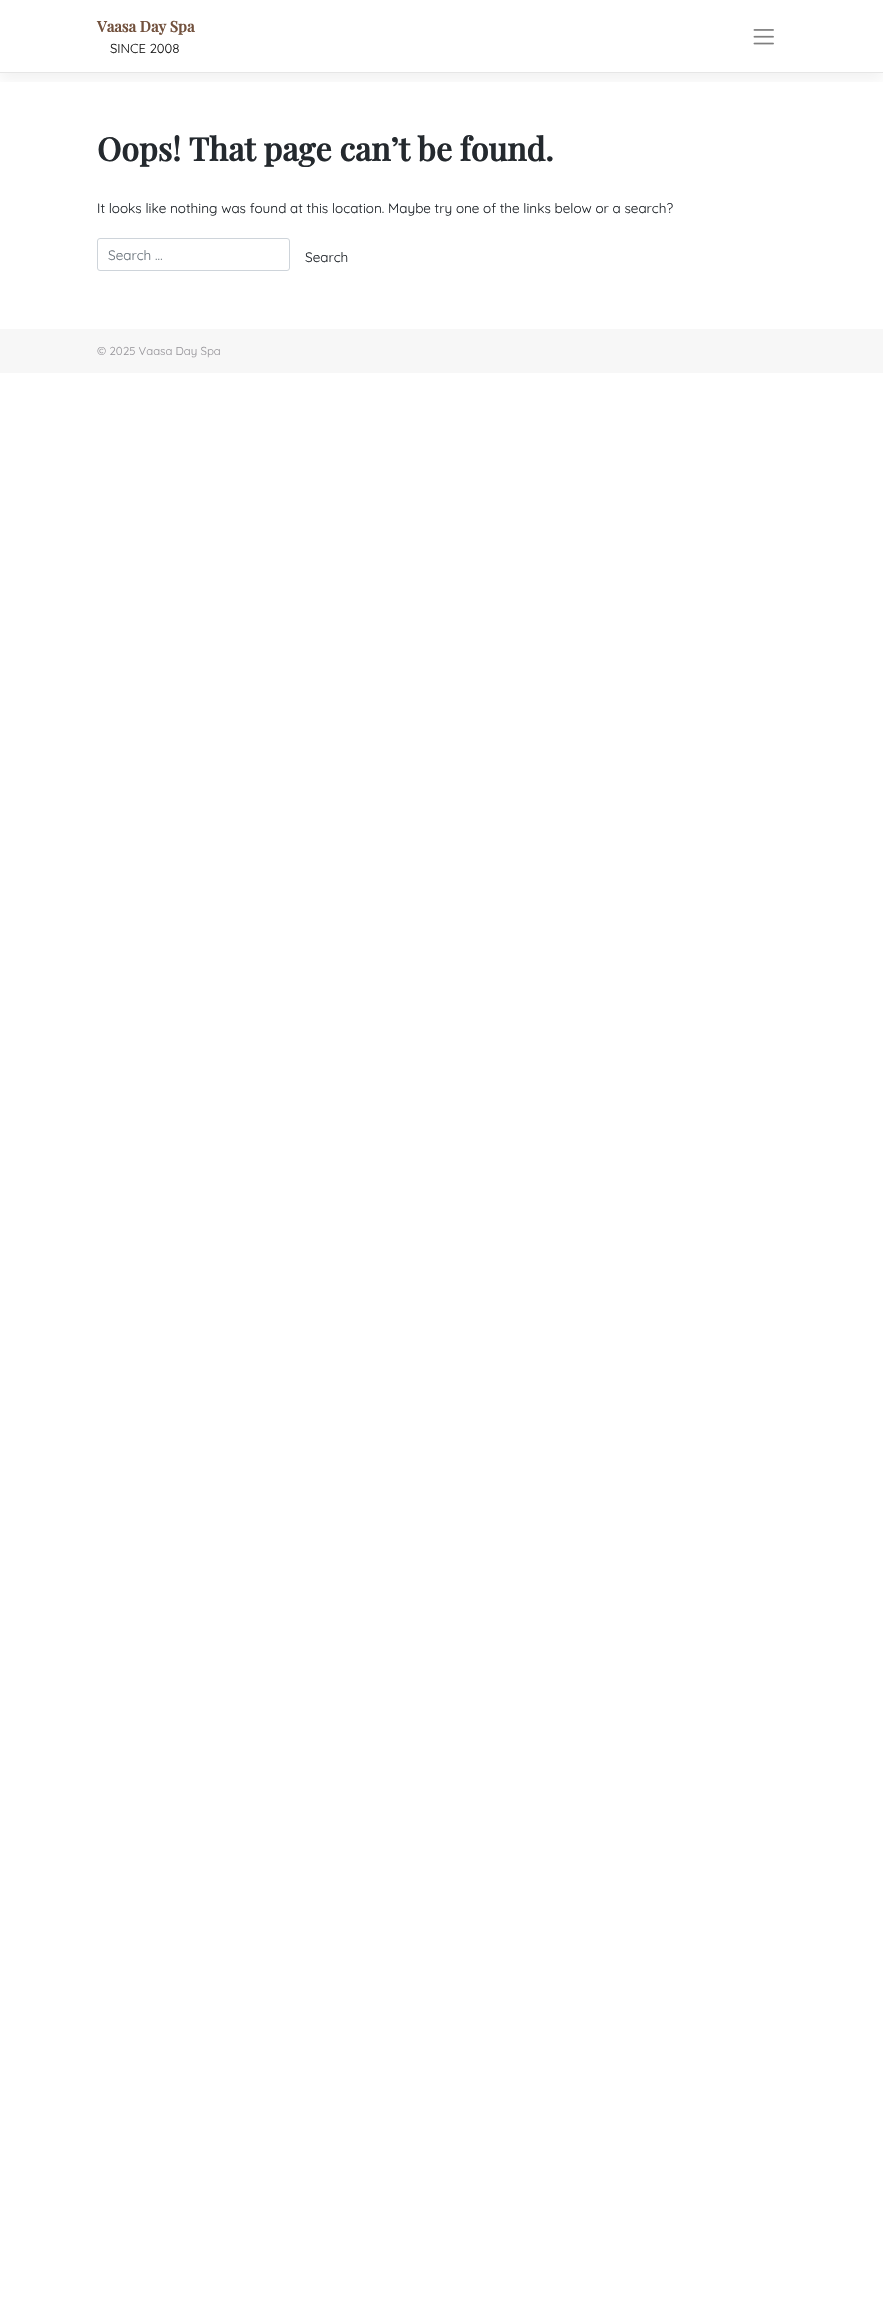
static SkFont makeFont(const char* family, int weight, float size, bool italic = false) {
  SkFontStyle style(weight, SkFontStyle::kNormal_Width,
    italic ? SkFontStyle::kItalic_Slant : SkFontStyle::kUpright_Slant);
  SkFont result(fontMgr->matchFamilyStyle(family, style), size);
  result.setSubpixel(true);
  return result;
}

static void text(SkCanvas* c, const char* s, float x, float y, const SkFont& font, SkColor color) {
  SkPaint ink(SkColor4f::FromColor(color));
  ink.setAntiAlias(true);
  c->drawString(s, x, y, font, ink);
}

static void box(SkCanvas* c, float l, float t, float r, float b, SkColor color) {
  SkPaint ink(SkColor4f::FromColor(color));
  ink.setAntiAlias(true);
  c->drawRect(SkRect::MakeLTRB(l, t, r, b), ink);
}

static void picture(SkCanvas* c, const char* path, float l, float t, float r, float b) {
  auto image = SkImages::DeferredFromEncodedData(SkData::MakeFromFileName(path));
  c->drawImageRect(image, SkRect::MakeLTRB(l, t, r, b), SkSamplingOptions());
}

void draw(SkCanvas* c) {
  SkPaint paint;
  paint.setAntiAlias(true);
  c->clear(0xffffffff);
  c->save();
  c->clipRect(SkRect::MakeLTRB(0, 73, 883, 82));
  paint.setColor(0x0d000000);
  paint.setMaskFilter(SkMaskFilter::MakeBlur(kNormal_SkBlurStyle, 7));
  c->drawRect(SkRect::MakeLTRB(0, 7, 883, 80), paint);
  paint.setMaskFilter(nullptr);
  c->restore();
  box(c, 0, 72, 883, 73, 0xffe6e6e6);
  SkFont face1 = makeFont("Playfair Display", 700, 15);
  text(c, "Vaasa Day Spa", 97, 32, face1, 0xff72513d);
  SkFont face2 = makeFont("Quicksand", 400, 13);
  text(c, "SINCE 2008", 110, 53, face2, 0xff1a1a1a);
  picture(c, "img_01.png", 753, 29, 774, 45);
  SkFont face3 = makeFont("Playfair Display", 700, 32);
  text(c, "Oops! That page can’t be found.", 97, 161, face3, 0xff24292e);
  SkFont face4 = makeFont("Quicksand", 400, 13.6f);
  text(c, "It looks like nothing was found at this location. Maybe try one of the links below or a search?", 97, 213, face4, 0xff24292e);
  paint.setStyle(SkPaint::kStroke_Style);
  paint.setStrokeWidth(1);
  paint.setColor(0xffced4da);
  c->drawRoundRect(SkRect::MakeLTRB(97.5f, 238.5f, 289.5f, 270.5f), 2.5f, 2.5f, paint);
  text(c, "Search …", 108, 260, face4, 0xff6c757d);
  text(c, "Search", 305, 262, face4, 0xff24292e);
  box(c, 0, 329, 883, 373, 0xfff7f7f7);
  SkFont face5 = makeFont("Quicksand", 400, 11.5f);
  text(c, "© 2025 Vaasa Day Spa", 97, 355, face5, 0xff99979c);
}
